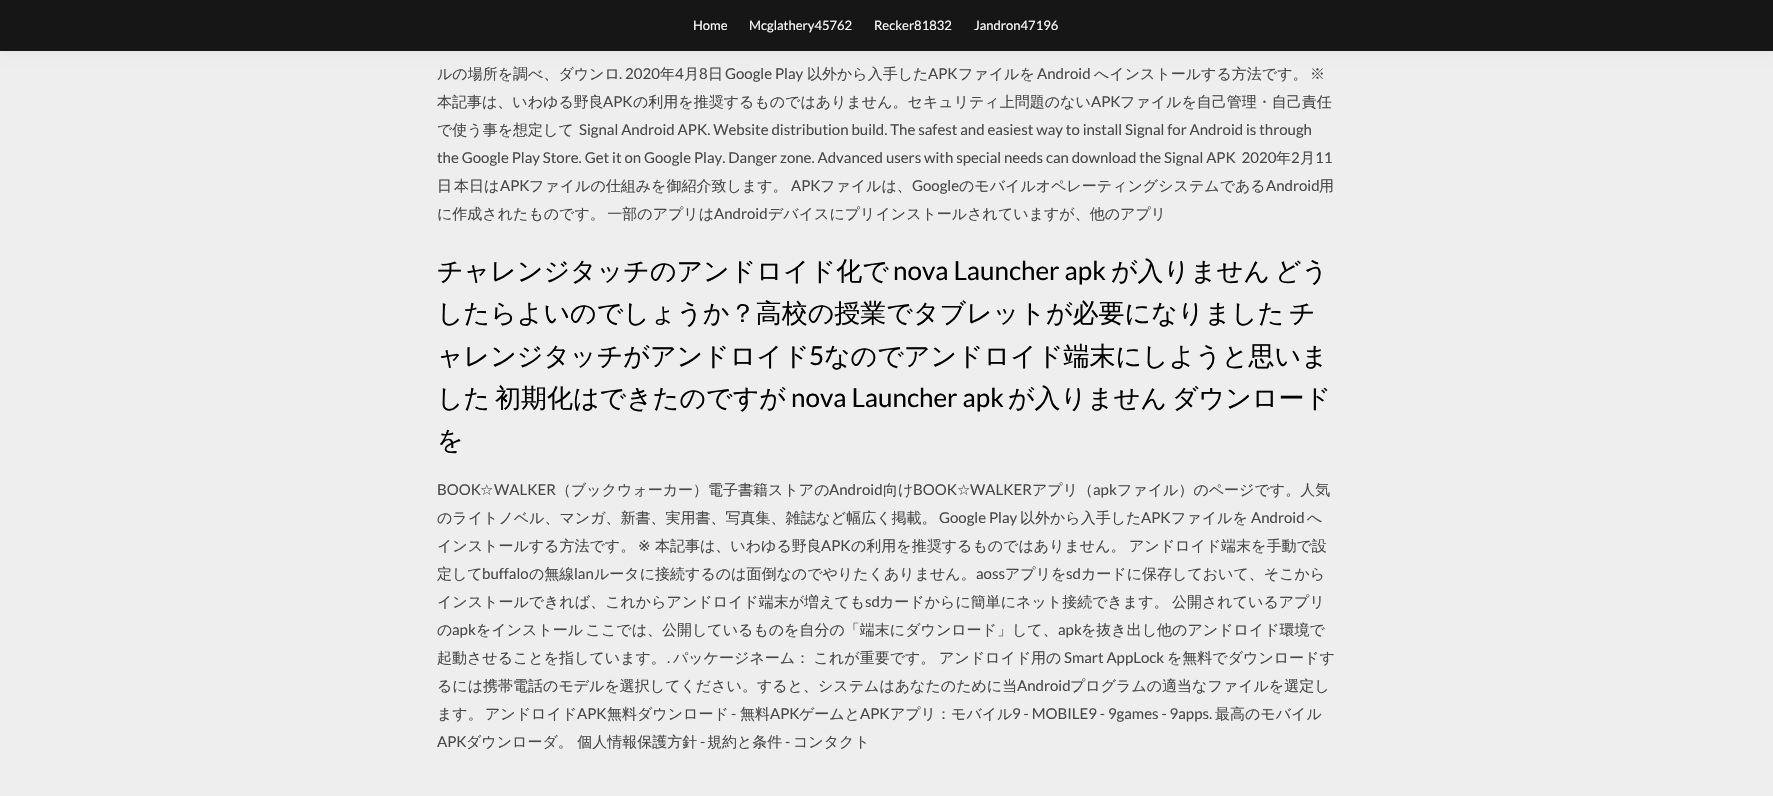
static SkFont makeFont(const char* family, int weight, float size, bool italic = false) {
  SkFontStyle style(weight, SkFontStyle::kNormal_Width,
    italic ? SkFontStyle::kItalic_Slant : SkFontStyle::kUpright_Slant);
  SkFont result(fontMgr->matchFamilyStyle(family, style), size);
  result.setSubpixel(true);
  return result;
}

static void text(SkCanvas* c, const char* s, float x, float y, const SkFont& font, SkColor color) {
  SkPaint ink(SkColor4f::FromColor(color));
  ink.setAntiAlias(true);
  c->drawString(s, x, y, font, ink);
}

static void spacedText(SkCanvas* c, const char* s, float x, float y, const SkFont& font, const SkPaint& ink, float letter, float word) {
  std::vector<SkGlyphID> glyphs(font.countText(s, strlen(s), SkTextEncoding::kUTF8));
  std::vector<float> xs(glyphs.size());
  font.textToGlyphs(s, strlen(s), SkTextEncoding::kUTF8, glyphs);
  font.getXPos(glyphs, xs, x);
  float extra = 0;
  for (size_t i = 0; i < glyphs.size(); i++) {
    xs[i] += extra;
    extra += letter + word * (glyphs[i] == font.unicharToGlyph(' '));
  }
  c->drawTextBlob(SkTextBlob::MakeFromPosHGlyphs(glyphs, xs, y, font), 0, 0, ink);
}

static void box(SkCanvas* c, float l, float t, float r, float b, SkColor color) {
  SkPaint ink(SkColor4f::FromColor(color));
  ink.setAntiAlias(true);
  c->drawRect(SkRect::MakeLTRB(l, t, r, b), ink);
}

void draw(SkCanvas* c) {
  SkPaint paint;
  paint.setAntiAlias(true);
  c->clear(0xffeeeeee);
  paint.setColor(0x0d000000);
  paint.setMaskFilter(SkMaskFilter::MakeBlur(kNormal_SkBlurStyle, 5));
  c->drawRect(SkRect::MakeLTRB(0, 0, 1773, 51), paint);
  paint.setMaskFilter(nullptr);
  box(c, 0, 0, 1773, 51, 0xff171616);
  SkFont face1 = makeFont("Lato", 400, 13);
  text(c, "Home", 693, 30, face1, 0xffffffff);
  text(c, "Mcglathery45762", 749, 30, face1, 0xffffffff);
  text(c, "Recker81832", 874, 30, face1, 0xffffffff);
  text(c, "Jandron47196", 974, 30, face1, 0xffffffff);
  SkFont face2 = makeFont("WenQuanYi Zen Hei", 500, 15);
  text(c, "ルの場所を調べ、ダウンロ", 437, 79, face2, 0xff484848);
  SkFont face3 = makeFont("Lato", 400, 15);
  text(c, ". 2020", 619, 79, face3, 0xff484848);
  text(c, "年", 660, 79, face2, 0xff484848);
  text(c, "4", 675, 79, face3, 0xff484848);
  text(c, "月", 684, 79, face2, 0xff484848);
  text(c, "8", 699, 79, face3, 0xff484848);
  text(c, "日", 708, 79, face2, 0xff484848);
  text(c, "Google Play", 725, 79, face3, 0xff484848);
  text(c, "以外から入手した", 807, 79, face2, 0xff484848);
  text(c, "APK", 928, 79, face3, 0xff484848);
  text(c, "ファイルを", 958, 79, face2, 0xff484848);
  text(c, "Android", 1037, 79, face3, 0xff484848);
  text(c, "へインストールする方法です。", 1094, 79, face2, 0xff484848);
  text(c, "※", 1310, 79, face2, 0xff484848);
  text(c, "本記事は、いわゆる野良", 437, 107, face2, 0xff484848);
  text(c, "APK", 603, 107, face3, 0xff484848);
  text(c, "の利用を推奨するものではありません。セキュリティ上問題のない", 633, 107, face2, 0xff484848);
  text(c, "APK", 1091, 107, face3, 0xff484848);
  text(c, "ファイルを自己管理・自己責任", 1120, 107, face2, 0xff484848);
  text(c, "で使う事を想定して", 437, 135, face2, 0xff484848);
  text(c, "Signal Android APK. Website distribution build. The safest and easiest way to install Signal for Android is through", 579, 135, face3, 0xff484848);
  text(c, "the Google Play Store. Get it on Google Play. Danger zone. Advanced users with special needs can download the Signal APK  2020", 437, 163, face3, 0xff484848);
  text(c, "年", 1276, 163, face2, 0xff484848);
  text(c, "2", 1291, 163, face3, 0xff484848);
  text(c, "月", 1300, 163, face2, 0xff484848);
  text(c, "11", 1315, 163, face3, 0xff484848);
  text(c, "日", 437, 191, face2, 0xff484848);
  text(c, "本日は", 454, 191, face2, 0xff484848);
  text(c, "APK", 500, 191, face3, 0xff484848);
  text(c, "ファイルの仕組みを御紹介致します。", 529, 191, face2, 0xff484848);
  text(c, "APK", 791, 191, face3, 0xff484848);
  text(c, "ファイルは、", 820, 191, face2, 0xff484848);
  text(c, "Google", 912, 191, face3, 0xff484848);
  text(c, "のモバイルオペレーティングシステムである", 959, 191, face2, 0xff484848);
  text(c, "Android", 1266, 191, face3, 0xff484848);
  text(c, "用", 1319, 191, face2, 0xff484848);
  paint.setColor(0xff484848);
  spacedText(c, "に作成されたものです。 一部のアプリは", 437, 219, face2, paint, 0, -2);
  text(c, "Android", 714, 219, face3, 0xff484848);
  text(c, "デバイスにプリインストールされていますが、他のアプリ", 768, 219, face2, 0xff484848);
  SkFont face4 = makeFont("WenQuanYi Zen Hei", 500, 26);
  text(c, "チャレンジタッチのアンドロイド化で", 437, 280, face4, 0xff000000);
  SkFont face5 = makeFont("Lato", 400, 26);
  text(c, "nova Launcher apk", 893, 280, face5, 0xff000000);
  text(c, "が入りません", 1111, 280, face4, 0xff000000);
  text(c, "どう", 1275, 280, face4, 0xff000000);
  paint.setColor(0xff000000);
  spacedText(c, "したらよいのでしょうか？高校の授業でタブレットが必要になりました チ", 437, 322, face4, paint, 0, -3);
  text(c, "ャレンジタッチがアンドロイド", 437, 365, face4, 0xff000000);
  text(c, "5", 809, 365, face5, 0xff000000);
  text(c, "なのでアンドロイド端末にしようと思いま", 824, 365, face4, 0xff000000);
  text(c, "した", 437, 407, face4, 0xff000000);
  text(c, "初期化はできたのですが", 495, 407, face4, 0xff000000);
  text(c, "nova Launcher apk", 791, 407, face5, 0xff000000);
  text(c, "が入りません", 1008, 407, face4, 0xff000000);
  text(c, "ダウンロード", 1172, 407, face4, 0xff000000);
  text(c, "を", 437, 449, face4, 0xff000000);
  text(c, "BOOK", 437, 495, face3, 0xff484848);
  SkFont face6 = makeFont("DejaVu Sans", 400, 15);
  text(c, "☆", 480, 495, face6, 0xff484848);
  text(c, "WALKER", 494, 495, face3, 0xff484848);
  text(c, "（ブックウォーカー）電子書籍ストアの", 556, 495, face2, 0xff484848);
  text(c, "Android", 829, 495, face3, 0xff484848);
  text(c, "向け", 883, 495, face2, 0xff484848);
  text(c, "BOOK", 913, 495, face3, 0xff484848);
  text(c, "☆", 957, 495, face6, 0xff484848);
  text(c, "WALKER", 970, 495, face3, 0xff484848);
  text(c, "アプリ（", 1032, 495, face2, 0xff484848);
  text(c, "apk", 1093, 495, face3, 0xff484848);
  text(c, "ファイル）のページです。人気", 1117, 495, face2, 0xff484848);
  text(c, "のライトノベル、マンガ、新書、実用書、写真集、雑誌など幅広く掲載。", 437, 523, face2, 0xff484848);
  text(c, "Google Play", 939, 523, face3, 0xff484848);
  text(c, "以外から入手した", 1020, 523, face2, 0xff484848);
  text(c, "APK", 1141, 523, face3, 0xff484848);
  text(c, "ファイルを", 1171, 523, face2, 0xff484848);
  text(c, "Android", 1251, 523, face3, 0xff484848);
  text(c, "へ", 1307, 523, face2, 0xff484848);
  text(c, "インストールする方法です。", 437, 551, face2, 0xff484848);
  text(c, "※", 638, 551, face6, 0xff484848);
  text(c, "本記事は、いわゆる野良", 655, 551, face2, 0xff484848);
  text(c, "APK", 821, 551, face3, 0xff484848);
  text(c, "の利用を推奨するものではありません。", 851, 551, face2, 0xff484848);
  text(c, "アンドロイド端末を手動で設", 1129, 551, face2, 0xff484848);
  text(c, "定して", 437, 579, face2, 0xff484848);
  text(c, "buffalo", 482, 579, face3, 0xff484848);
  text(c, "の無線", 529, 579, face2, 0xff484848);
  text(c, "lan", 574, 579, face3, 0xff484848);
  text(c, "ルータに接続するのは面倒なのでやりたくありません。", 594, 579, face2, 0xff484848);
  text(c, "aoss", 976, 579, face3, 0xff484848);
  text(c, "アプリを", 1005, 579, face2, 0xff484848);
  text(c, "sd", 1066, 579, face3, 0xff484848);
  text(c, "カードに保存しておいて、そこから", 1081, 579, face2, 0xff484848);
  text(c, "インストールできれば、これからアンドロイド端末が増えても", 437, 607, face2, 0xff484848);
  text(c, "sd", 865, 607, face3, 0xff484848);
  text(c, "カードからに簡単にネット接続できます。", 879, 607, face2, 0xff484848);
  text(c, "公開されているアプリ", 1172, 607, face2, 0xff484848);
  text(c, "の", 437, 635, face2, 0xff484848);
  text(c, "apk", 452, 635, face3, 0xff484848);
  paint.setColor(0xff484848);
  spacedText(c, "をインストール ここでは、公開しているものを自分の「端末にダウンロード」して、", 476, 635, face2, paint, 0, -2);
  text(c, "apk", 1058, 635, face3, 0xff484848);
  text(c, "を抜き出し他のアンドロイド環境で", 1081, 635, face2, 0xff484848);
  text(c, "起動させることを指しています。", 437, 663, face2, 0xff484848);
  text(c, ".", 667, 663, face3, 0xff484848);
  spacedText(c, "パッケージネーム： これが重要です。", 673, 663, face2, paint, 0, -1);
  text(c, "アンドロイド用の", 939, 663, face2, 0xff484848);
  text(c, "Smart AppLock", 1064, 663, face3, 0xff484848);
  text(c, "を無料でダウンロードす", 1167, 663, face2, 0xff484848);
  text(c, "るには携帯電話のモデルを選択してください。すると、システムはあなたのために当", 437, 691, face2, 0xff484848);
  text(c, "Android", 1017, 691, face3, 0xff484848);
  text(c, "プログラムの適当なファイルを選定し", 1070, 691, face2, 0xff484848);
  text(c, "ます。", 437, 719, face2, 0xff484848);
  text(c, "アンドロイド", 485, 719, face2, 0xff484848);
  text(c, "APK", 577, 719, face3, 0xff484848);
  text(c, "無料ダウンロード", 607, 719, face2, 0xff484848);
  text(c, "-", 731, 719, face3, 0xff484848);
  text(c, "無料", 740, 719, face2, 0xff484848);
  text(c, "APK", 770, 719, face3, 0xff484848);
  text(c, "ゲームと", 799, 719, face2, 0xff484848);
  text(c, "APK", 860, 719, face3, 0xff484848);
  text(c, "アプリ：モバイル", 890, 719, face2, 0xff484848);
  text(c, "9 - MOBILE9 - 9games - 9apps.", 1012, 719, face3, 0xff484848);
  text(c, "最高のモバイル", 1215, 719, face2, 0xff484848);
  text(c, "APK", 437, 747, face3, 0xff484848);
  text(c, "ダウンローダ。 個人情報保護方針", 466, 747, face2, 0xff484848);
  text(c, "-", 700, 747, face3, 0xff484848);
  text(c, "規約と条件", 707, 747, face2, 0xff484848);
  text(c, "-", 785, 747, face3, 0xff484848);
  text(c, "コンタクト", 793, 747, face2, 0xff484848);
}
